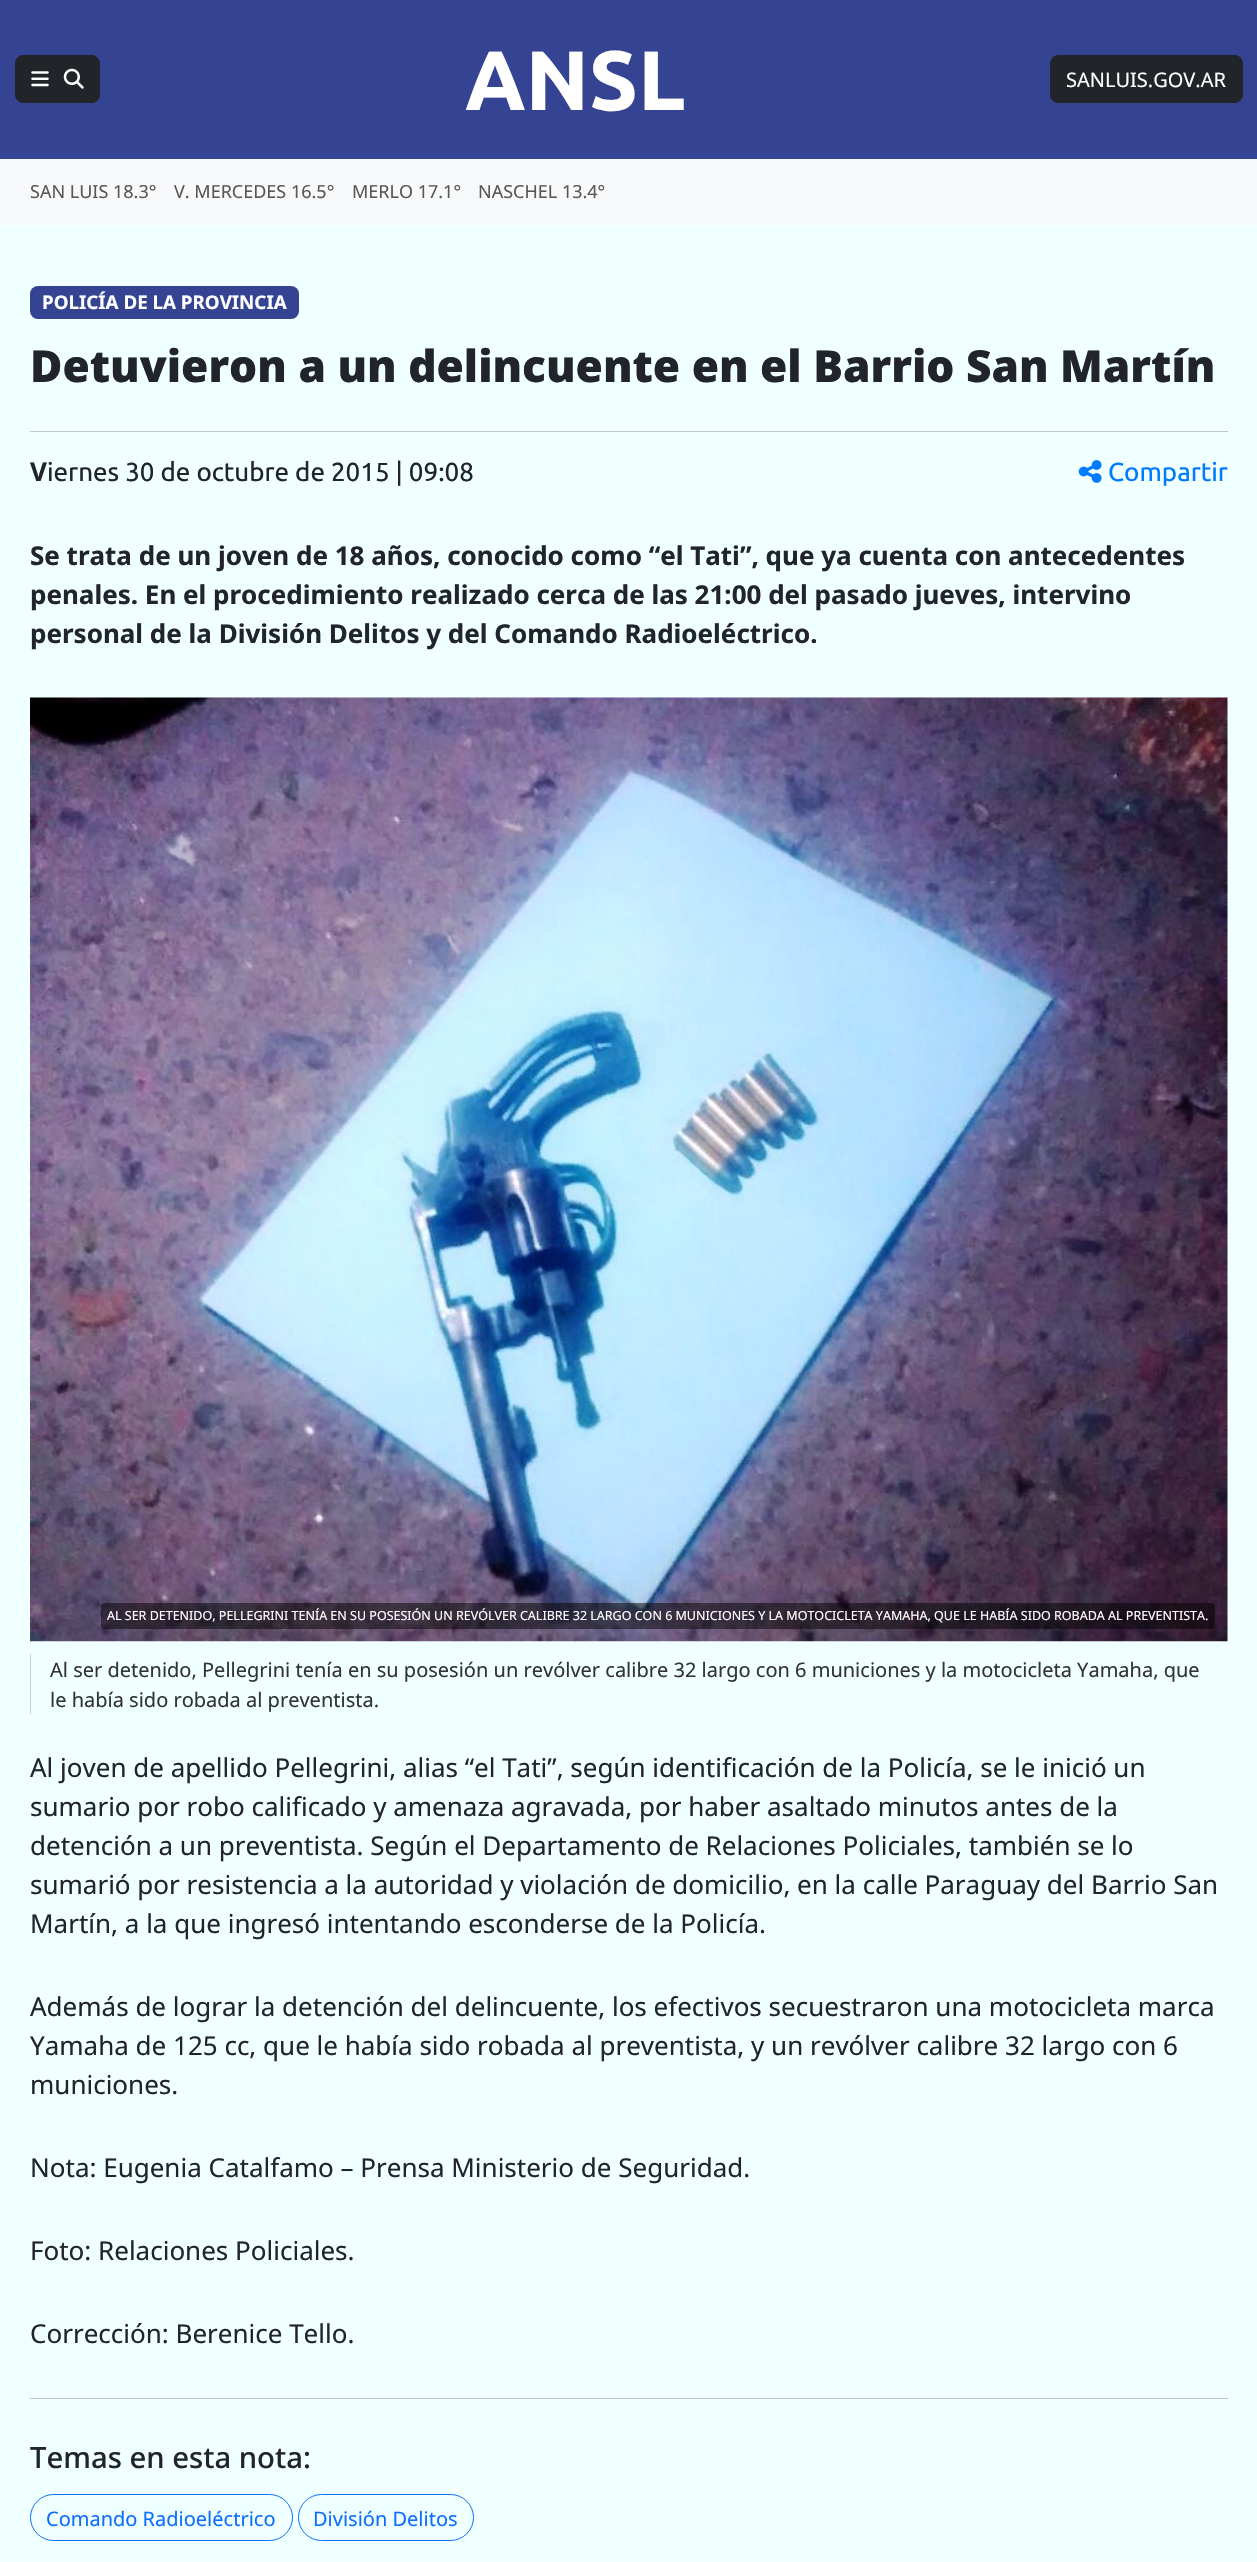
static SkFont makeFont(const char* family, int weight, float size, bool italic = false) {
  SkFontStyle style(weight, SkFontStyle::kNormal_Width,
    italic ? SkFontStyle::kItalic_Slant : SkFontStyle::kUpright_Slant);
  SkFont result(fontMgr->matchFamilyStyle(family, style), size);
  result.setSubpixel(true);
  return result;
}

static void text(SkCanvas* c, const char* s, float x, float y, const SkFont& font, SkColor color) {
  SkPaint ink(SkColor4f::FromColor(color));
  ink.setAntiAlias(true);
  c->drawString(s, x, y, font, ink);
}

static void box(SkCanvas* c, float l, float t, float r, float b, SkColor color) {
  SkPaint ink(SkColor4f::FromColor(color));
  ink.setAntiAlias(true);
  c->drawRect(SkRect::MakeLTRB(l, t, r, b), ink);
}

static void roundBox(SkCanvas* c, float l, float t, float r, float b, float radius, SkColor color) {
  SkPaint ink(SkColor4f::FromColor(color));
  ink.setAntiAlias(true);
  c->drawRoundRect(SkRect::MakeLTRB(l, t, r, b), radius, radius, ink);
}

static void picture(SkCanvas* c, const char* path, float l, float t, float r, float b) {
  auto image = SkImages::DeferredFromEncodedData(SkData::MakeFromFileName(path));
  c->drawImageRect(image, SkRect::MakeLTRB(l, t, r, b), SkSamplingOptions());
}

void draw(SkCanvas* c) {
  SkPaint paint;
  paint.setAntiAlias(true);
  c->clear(0xfff0ffff);
  box(c, 0, 0, 1257, 159, 0xff354393);
  paint.setColor(0xff212529);
  c->drawRoundRect(SkRect::MakeLTRB(15.5f, 55.5f, 99.5f, 102.5f), 7.5f, 7.5f, paint);
  paint.setStyle(SkPaint::kStroke_Style);
  paint.setStrokeWidth(1);
  c->drawRoundRect(SkRect::MakeLTRB(15.5f, 55.5f, 99.5f, 102.5f), 7.5f, 7.5f, paint);
  picture(c, "img_01.png", 31, 71, 49, 87);
  picture(c, "img_02.png", 63, 68, 84, 89);
  SkFont face1 = makeFont("Ubuntu", 700, 84);
  text(c, "ANSL", 465, 110, face1, 0xffffffff);
  paint.setStyle(SkPaint::kFill_Style);
  c->drawRoundRect(SkRect::MakeLTRB(1050.5f, 55.5f, 1242.5f, 102.5f), 7.5f, 7.5f, paint);
  paint.setStyle(SkPaint::kStroke_Style);
  c->drawRoundRect(SkRect::MakeLTRB(1050.5f, 55.5f, 1242.5f, 102.5f), 7.5f, 7.5f, paint);
  SkFont face2 = makeFont("Noto Sans", 400, 20);
  text(c, "SANLUIS.GOV.AR", 1066, 87, face2, 0xffffffff);
  box(c, 0, 159, 1257, 225, 0xfff8f9fa);
  SkFont face3 = makeFont("Noto Sans", 400, 18);
  text(c, "SAN LUIS 18.3°", 30, 198, face3, 0xff575758);
  text(c, "V. MERCEDES 16.5°", 174, 198, face3, 0xff575758);
  text(c, "MERLO 17.1°", 352, 198, face3, 0xff575758);
  text(c, "NASCHEL 13.4°", 478, 198, face3, 0xff575758);
  roundBox(c, 30, 286, 299, 319, 8, 0xff354393);
  SkFont face4 = makeFont("Noto Sans", 700, 18.75f);
  text(c, "POLICÍA DE LA PROVINCIA", 42, 309, face4, 0xffffffff);
  SkFont face5 = makeFont("Noto Sans", 900, 44.2f);
  text(c, "Detuvieron a un delincuente en el Barrio San Martín", 30, 382, face5, 0xff212529);
  box(c, 30, 431, 1228, 432, 0xffbcc9ca);
  SkFont face6 = makeFont("Noto Sans", 700, 26);
  text(c, "V", 30, 481, face6, 0xff212529);
  SkFont face7 = makeFont("Ubuntu", 400, 26);
  text(c, "iernes 30 de octubre de 2015 | 09:08", 47, 481, face7, 0xff212529);
  picture(c, "img_03.png", 1078, 460, 1102, 483);
  text(c, "Compartir", 1108, 481, face7, 0xff007bff);
  text(c, "Se trata de un joven de 18 años, conocido como “el Tati”, que ya cuenta con antecedentes", 30, 565, face6, 0xff212529);
  text(c, "penales. En el procedimiento realizado cerca de las 21:00 del pasado jueves, intervino", 30, 604, face6, 0xff212529);
  text(c, "personal de la División Delitos y del Comando Radioeléctrico.", 30, 643, face6, 0xff212529);
  picture(c, "img_04.png", 30, 697, 1228, 1642);
  roundBox(c, 101, 1603, 1215, 1629, 4, 0x80000000);
  SkFont face8 = makeFont("Noto Sans", 400, 12.5f);
  text(c, "AL SER DETENIDO, PELLEGRINI TENÍA EN SU POSESIÓN UN REVÓLVER CALIBRE 32 LARGO CON 6 MUNICIONES Y LA MOTOCICLETA YAMAHA, QUE LE HABÍA SIDO ROBADA AL PREVENTISTA.", 107, 1620, face8, 0xffffffff);
  box(c, 30, 1654, 31, 1714, 0xffcccccc);
  text(c, "Al ser detenido, Pellegrini tenía en su posesión un revólver calibre 32 largo con 6 municiones y la motocicleta Yamaha, que", 50, 1677, face2, 0xff333333);
  text(c, "le había sido robada al preventista.", 50, 1707, face2, 0xff333333);
  SkFont face9 = makeFont("Noto Sans", 400, 26);
  text(c, "Al joven de apellido Pellegrini, alias “el Tati”, según identificación de la Policía, se le inició un", 30, 1777, face9, 0xff212529);
  text(c, "sumario por robo calificado y amenaza agravada, por haber asaltado minutos antes de la", 30, 1816, face9, 0xff212529);
  text(c, "detención a un preventista. Según el Departamento de Relaciones Policiales, también se lo", 30, 1855, face9, 0xff212529);
  text(c, "sumarió por resistencia a la autoridad y violación de domicilio, en la calle Paraguay del Barrio San", 30, 1894, face9, 0xff212529);
  text(c, "Martín, a la que ingresó intentando esconderse de la Policía.", 30, 1933, face9, 0xff212529);
  text(c, "Además de lograr la detención del delincuente, los efectivos secuestraron una motocicleta marca", 30, 2016, face9, 0xff212529);
  text(c, "Yamaha de 125 cc, que le había sido robada al preventista, y un revólver calibre 32 largo con 6", 30, 2055, face9, 0xff212529);
  text(c, "municiones.", 30, 2094, face9, 0xff212529);
  text(c, "Nota: Eugenia Catalfamo – Prensa Ministerio de Seguridad.", 30, 2177, face9, 0xff212529);
  text(c, "Foto: Relaciones Policiales.", 30, 2260, face9, 0xff212529);
  text(c, "Corrección: Berenice Tello.", 30, 2343, face9, 0xff212529);
  box(c, 30, 2398, 1228, 2399, 0xffbcc9ca);
  SkFont face10 = makeFont("Noto Sans", 500, 29.25f);
  text(c, "Temas en esta nota:", 30, 2468, face10, 0xff212529);
  paint.setColor(0xff0d6efd);
  c->drawRoundRect(SkRect::MakeLTRB(30.5f, 2494.5f, 292.5f, 2540.5f), 23, 23, paint);
  text(c, "Comando Radioeléctrico", 46, 2526, face2, 0xff0d6efd);
  c->drawRoundRect(SkRect::MakeLTRB(298.5f, 2494.5f, 473.5f, 2540.5f), 23, 23, paint);
  text(c, "División Delitos", 313, 2526, face2, 0xff0d6efd);
}
